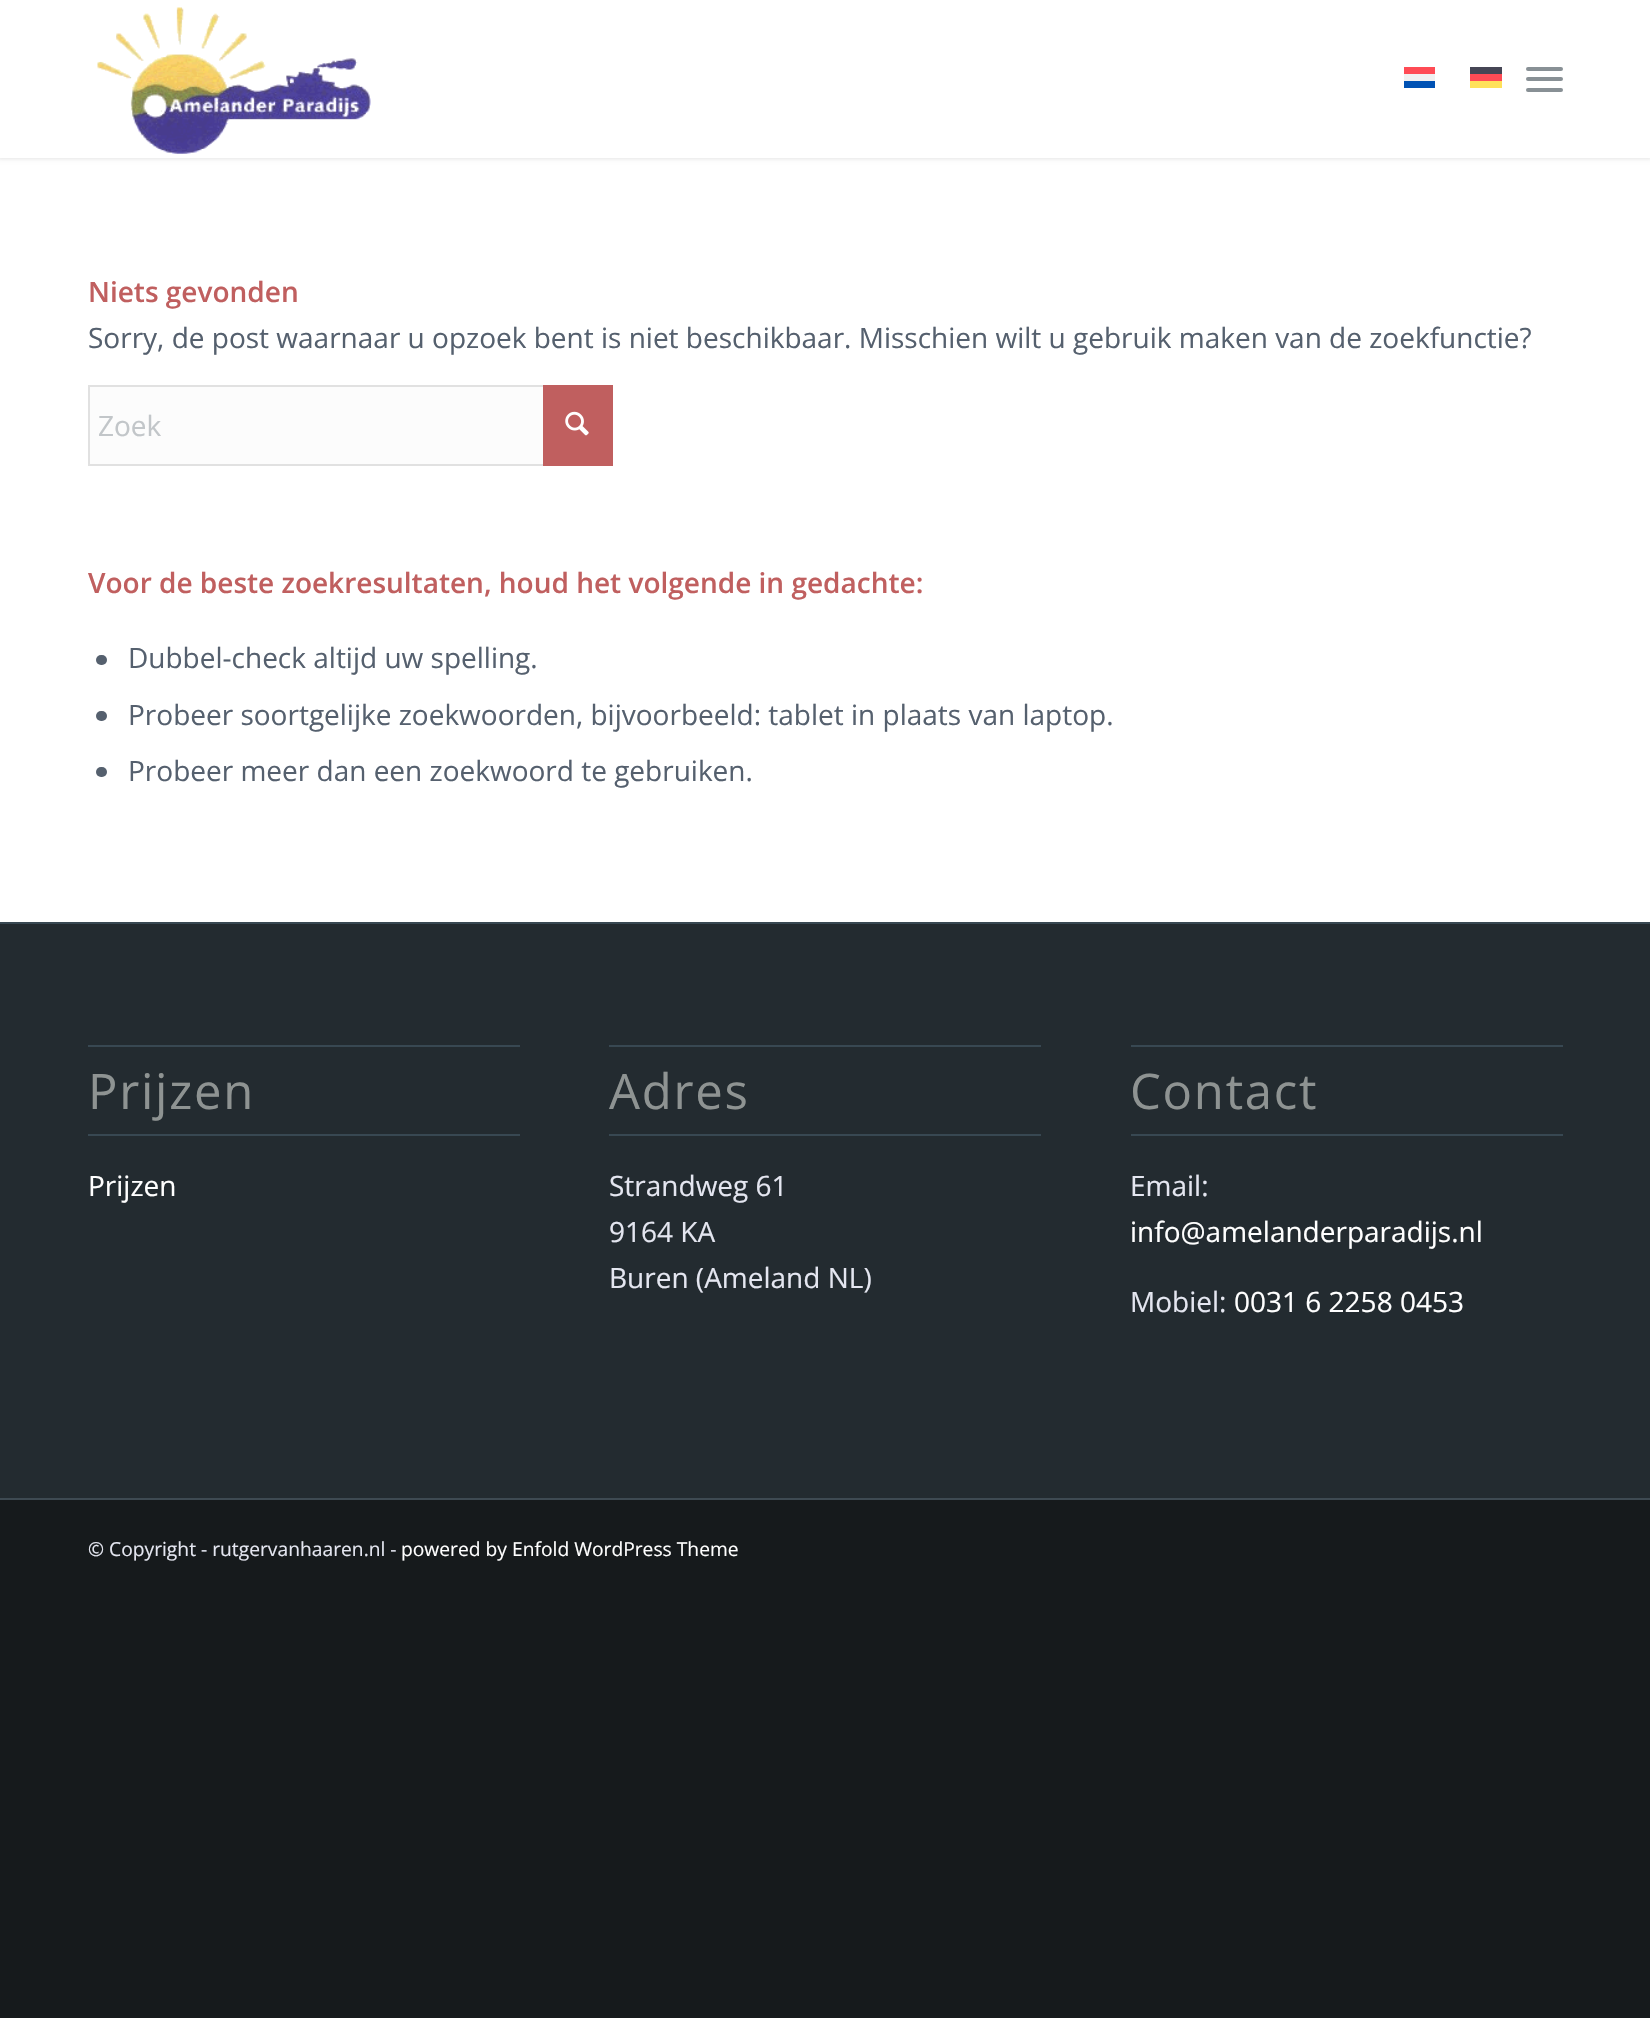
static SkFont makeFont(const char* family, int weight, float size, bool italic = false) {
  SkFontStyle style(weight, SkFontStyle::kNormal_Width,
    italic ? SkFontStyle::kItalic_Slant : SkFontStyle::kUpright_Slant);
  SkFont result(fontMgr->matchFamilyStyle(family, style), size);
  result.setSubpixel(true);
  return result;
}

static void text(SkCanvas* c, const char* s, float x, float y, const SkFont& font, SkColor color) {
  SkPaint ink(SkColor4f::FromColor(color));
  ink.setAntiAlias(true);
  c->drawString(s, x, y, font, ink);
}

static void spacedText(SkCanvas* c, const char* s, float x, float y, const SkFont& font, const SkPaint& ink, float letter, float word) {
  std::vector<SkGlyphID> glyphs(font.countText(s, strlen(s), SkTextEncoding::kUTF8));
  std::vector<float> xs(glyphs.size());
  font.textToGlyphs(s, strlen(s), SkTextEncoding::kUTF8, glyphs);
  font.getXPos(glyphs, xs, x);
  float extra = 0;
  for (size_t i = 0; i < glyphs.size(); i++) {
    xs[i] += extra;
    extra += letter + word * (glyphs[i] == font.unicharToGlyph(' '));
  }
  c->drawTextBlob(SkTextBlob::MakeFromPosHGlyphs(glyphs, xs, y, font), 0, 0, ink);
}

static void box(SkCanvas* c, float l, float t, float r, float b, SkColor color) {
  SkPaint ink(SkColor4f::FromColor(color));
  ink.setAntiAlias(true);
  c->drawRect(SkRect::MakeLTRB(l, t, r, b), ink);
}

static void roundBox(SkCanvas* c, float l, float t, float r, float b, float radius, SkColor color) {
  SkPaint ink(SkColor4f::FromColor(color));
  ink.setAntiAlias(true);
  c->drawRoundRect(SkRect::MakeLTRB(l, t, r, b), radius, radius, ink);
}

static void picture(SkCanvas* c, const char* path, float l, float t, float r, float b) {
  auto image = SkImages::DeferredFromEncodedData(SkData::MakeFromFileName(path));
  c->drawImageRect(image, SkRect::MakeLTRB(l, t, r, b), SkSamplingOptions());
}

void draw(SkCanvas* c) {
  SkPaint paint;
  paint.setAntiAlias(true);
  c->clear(0xff161a1c);
  box(c, 0, 158, 1650, 922, 0xffffffff);
  paint.setColor(0x1a000000);
  paint.setMaskFilter(SkMaskFilter::MakeBlur(kNormal_SkBlurStyle, 2));
  c->drawRect(SkRect::MakeLTRB(-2, -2, 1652, 159), paint);
  paint.setMaskFilter(nullptr);
  box(c, 0, 0, 1650, 158, 0xffffffff);
  picture(c, "img_01.png", 97, 7, 371, 154);
  box(c, 1404, 74, 1435, 81, 0xfff0f0f0);
  box(c, 1404, 81, 1435, 88, 0xff0052b4);
  box(c, 1404, 67, 1435, 74, 0xffff4b55);
  box(c, 1470, 74, 1502, 81, 0xffff4b55);
  box(c, 1470, 81, 1502, 88, 0xffffe15a);
  box(c, 1470, 67, 1502, 74, 0xff464655);
  roundBox(c, 1526, 77, 1563, 81, 2, 0xff889095);
  roundBox(c, 1526, 67, 1563, 71, 2, 0xff889095);
  roundBox(c, 1526, 88, 1563, 92, 2, 0xff889095);
  SkFont face1 = makeFont("Open Sans", 600, 28);
  text(c, "Niets gevonden", 88, 302, face1, 0xffc05f5f);
  SkFont face2 = makeFont("Open Sans", 400, 28);
  text(c, "Sorry, de post waarnaar u opzoek bent is niet beschikbaar. Misschien wilt u gebruik maken van de zoekfunctie?", 88, 348, face2, 0xff55606e);
  box(c, 90, 387, 543, 464, 0xfffcfcfc);
  paint.setStyle(SkPaint::kStroke_Style);
  paint.setStrokeWidth(2);
  paint.setColor(0xffe1e1e1);
  c->drawRect(SkRect::MakeLTRB(89, 386, 612, 465), paint);
  text(c, "Zoek", 98, 436, face2, 0xffc2c6c9);
  box(c, 543, 385, 613, 466, 0xffc05f5f);
  picture(c, "img_02.png", 565, 411, 589, 436);
  text(c, "Voor de beste zoekresultaten, houd het volgende in gedachte:", 88, 593, face1, 0xffc05f5f);
  roundBox(c, 96, 655, 107, 665, 5, 0xff55606e);
  text(c, "Dubbel-check altijd uw spelling.", 128, 668, face2, 0xff55606e);
  roundBox(c, 96, 711, 107, 721, 5, 0xff55606e);
  text(c, "Probeer soortgelijke zoekwoorden, bijvoorbeeld: tablet in plaats van laptop.", 128, 725, face2, 0xff55606e);
  roundBox(c, 96, 767, 107, 777, 5, 0xff55606e);
  text(c, "Probeer meer dan een zoekwoord te gebruiken.", 128, 781, face2, 0xff55606e);
  box(c, 0, 924, 1650, 1498, 0xff232b30);
  box(c, 0, 922, 1650, 924, 0xff384852);
  box(c, 88, 1045, 520, 1047, 0xff384852);
  box(c, 88, 1134, 520, 1136, 0xff384852);
  SkFont face3 = makeFont("Open Sans", 400, 49);
  paint.setStyle(SkPaint::kFill_Style);
  paint.setColor(0xff8e9392);
  spacedText(c, "Prijzen", 88, 1109, face3, paint, 1.75f, 0);
  text(c, "Prijzen", 88, 1196, face2, 0xffffffff);
  box(c, 609, 1045, 1041, 1047, 0xff384852);
  box(c, 609, 1134, 1041, 1136, 0xff384852);
  spacedText(c, "Adres", 609, 1109, face3, paint, 1.75f, 0);
  text(c, "Strandweg 61", 609, 1196, face2, 0xffe4e6f0);
  text(c, "9164 KA", 609, 1242, face2, 0xffe4e6f0);
  text(c, "Buren (Ameland NL)", 609, 1288, face2, 0xffe4e6f0);
  box(c, 1131, 1045, 1563, 1047, 0xff384852);
  box(c, 1131, 1134, 1563, 1136, 0xff384852);
  spacedText(c, "Contact", 1130, 1109, face3, paint, 1.75f, 0);
  text(c, "Email:", 1130, 1196, face2, 0xffe4e6f0);
  text(c, "info@amelanderparadijs.nl", 1130, 1242, face2, 0xffffffff);
  text(c, "Mobiel:", 1130, 1312, face2, 0xffe4e6f0);
  text(c, "0031 6 2258 0453", 1234, 1312, face2, 0xffffffff);
  box(c, 0, 1498, 1650, 1500, 0xff3e4a52);
  SkFont face4 = makeFont("Open Sans", 400, 19.25f);
  text(c, "© Copyright - rutgervanhaaren.nl -", 88, 1556, face4, 0xffe4e6f0);
  text(c, "powered by Enfold WordPress Theme", 401, 1556, face4, 0xffffffff);
}
